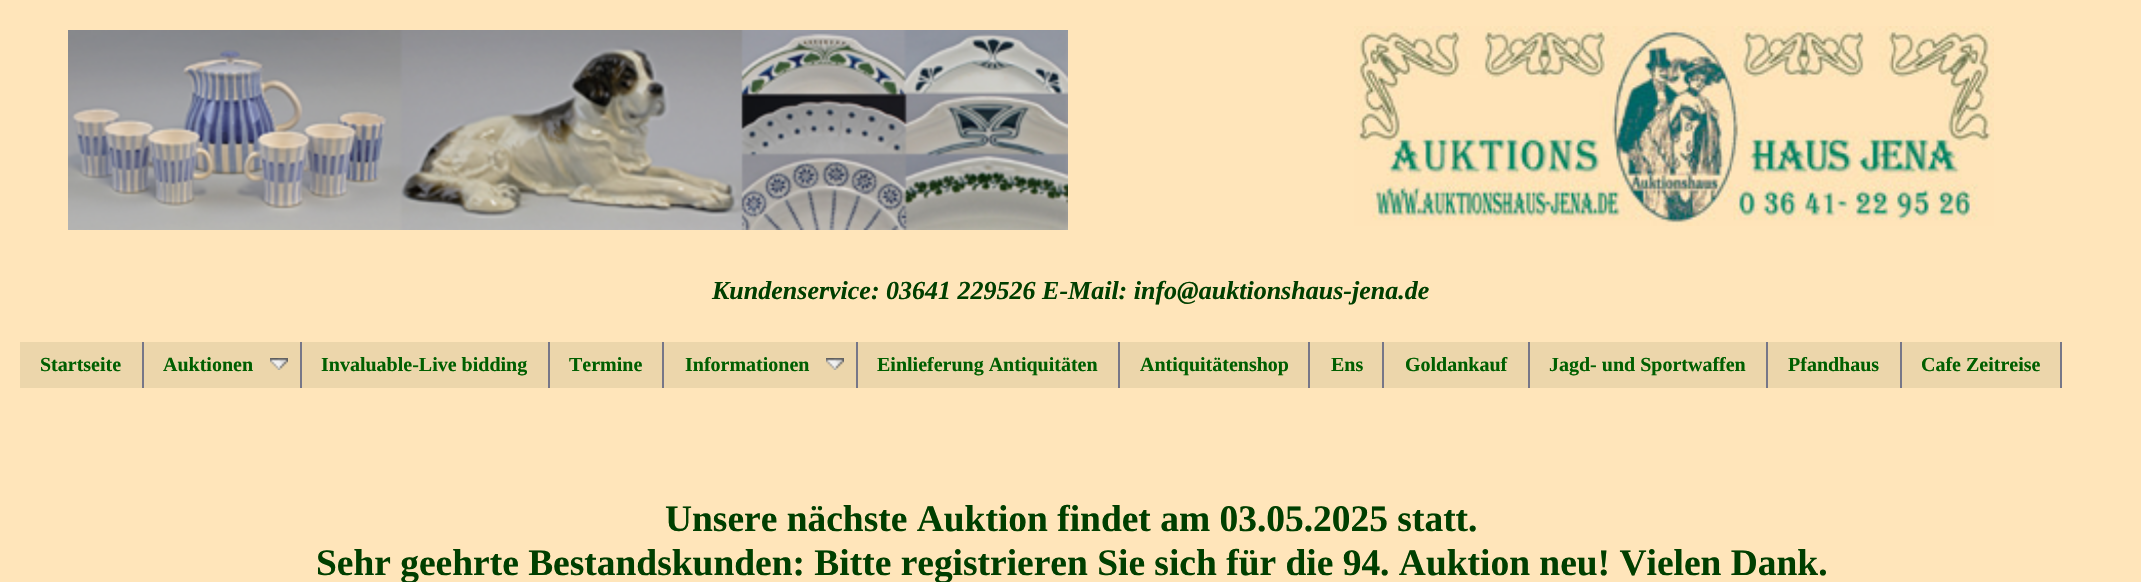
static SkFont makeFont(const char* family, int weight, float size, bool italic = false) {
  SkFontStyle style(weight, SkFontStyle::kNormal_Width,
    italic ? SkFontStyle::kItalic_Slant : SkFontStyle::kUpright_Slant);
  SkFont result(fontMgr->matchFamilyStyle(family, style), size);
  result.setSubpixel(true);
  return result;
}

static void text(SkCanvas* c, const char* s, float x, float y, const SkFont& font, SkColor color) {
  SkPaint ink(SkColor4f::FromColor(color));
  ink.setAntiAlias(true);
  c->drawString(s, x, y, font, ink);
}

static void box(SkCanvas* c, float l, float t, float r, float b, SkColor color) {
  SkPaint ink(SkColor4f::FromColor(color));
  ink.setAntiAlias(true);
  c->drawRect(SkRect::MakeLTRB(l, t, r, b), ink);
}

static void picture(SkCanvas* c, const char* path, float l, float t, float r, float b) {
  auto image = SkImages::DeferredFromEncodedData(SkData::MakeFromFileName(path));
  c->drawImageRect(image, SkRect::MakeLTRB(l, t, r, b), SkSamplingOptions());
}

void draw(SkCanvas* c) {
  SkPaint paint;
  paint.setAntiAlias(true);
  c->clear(0xffffe5ba);
  picture(c, "img_01.png", 68, 30, 1068, 230);
  picture(c, "img_02.png", 1354, 26, 1994, 226);
  SkFont face1 = makeFont("Liberation Serif", 700, 26, true);
  text(c, "Kundenservice: 03641 229526 E-Mail: info@auktionshaus-jena.de", 712, 299, face1, 0xff003f00);
  box(c, 20, 342, 142, 388, 0xffecd6ab);
  box(c, 142, 342, 144, 388, 0xff777788);
  SkFont face2 = makeFont("Liberation Serif", 700, 20);
  text(c, "Startseite", 40, 371, face2, 0xff005f00);
  box(c, 144, 342, 300, 388, 0xffecd6ab);
  box(c, 300, 342, 302, 388, 0xff777788);
  text(c, "Auktionen", 163, 371, face2, 0xff005f00);
  picture(c, "img_03.png", 270, 358, 288, 370);
  box(c, 302, 342, 548, 388, 0xffecd6ab);
  box(c, 548, 342, 550, 388, 0xff777788);
  text(c, "Invaluable-Live bidding", 321, 371, face2, 0xff005f00);
  box(c, 550, 342, 662, 388, 0xffecd6ab);
  box(c, 662, 342, 664, 388, 0xff777788);
  text(c, "Termine", 569, 371, face2, 0xff005f00);
  box(c, 664, 342, 856, 388, 0xffecd6ab);
  box(c, 856, 342, 858, 388, 0xff777788);
  text(c, "Informationen", 685, 371, face2, 0xff005f00);
  picture(c, "img_03.png", 826, 358, 844, 370);
  box(c, 858, 342, 1118, 388, 0xffecd6ab);
  box(c, 1118, 342, 1120, 388, 0xff777788);
  text(c, "Einlieferung Antiquitäten", 877, 371, face2, 0xff005f00);
  box(c, 1120, 342, 1308, 388, 0xffecd6ab);
  box(c, 1308, 342, 1310, 388, 0xff777788);
  text(c, "Antiquitätenshop", 1140, 371, face2, 0xff005f00);
  box(c, 1310, 342, 1382, 388, 0xffecd6ab);
  box(c, 1382, 342, 1384, 388, 0xff777788);
  text(c, "Ens", 1331, 371, face2, 0xff005f00);
  box(c, 1384, 342, 1528, 388, 0xffecd6ab);
  box(c, 1528, 342, 1530, 388, 0xff777788);
  text(c, "Goldankauf", 1405, 371, face2, 0xff005f00);
  box(c, 1530, 342, 1766, 388, 0xffecd6ab);
  box(c, 1766, 342, 1768, 388, 0xff777788);
  text(c, "Jagd- und Sportwaffen", 1549, 371, face2, 0xff005f00);
  box(c, 1768, 342, 1900, 388, 0xffecd6ab);
  box(c, 1900, 342, 1902, 388, 0xff777788);
  text(c, "Pfandhaus", 1788, 371, face2, 0xff005f00);
  box(c, 1902, 342, 2060, 388, 0xffecd6ab);
  box(c, 2060, 342, 2062, 388, 0xff777788);
  text(c, "Cafe Zeitreise", 1921, 371, face2, 0xff005f00);
  SkFont face3 = makeFont("Liberation Serif", 700, 37.45f);
  text(c, "Unsere nächste Auktion findet am 03.05.2025 statt.", 665, 531, face3, 0xff003f00);
  text(c, "Sehr geehrte Bestandskunden: Bitte registrieren Sie sich für die 94. Auktion neu! Vielen Dank.", 316, 575, face3, 0xff003f00);
}
